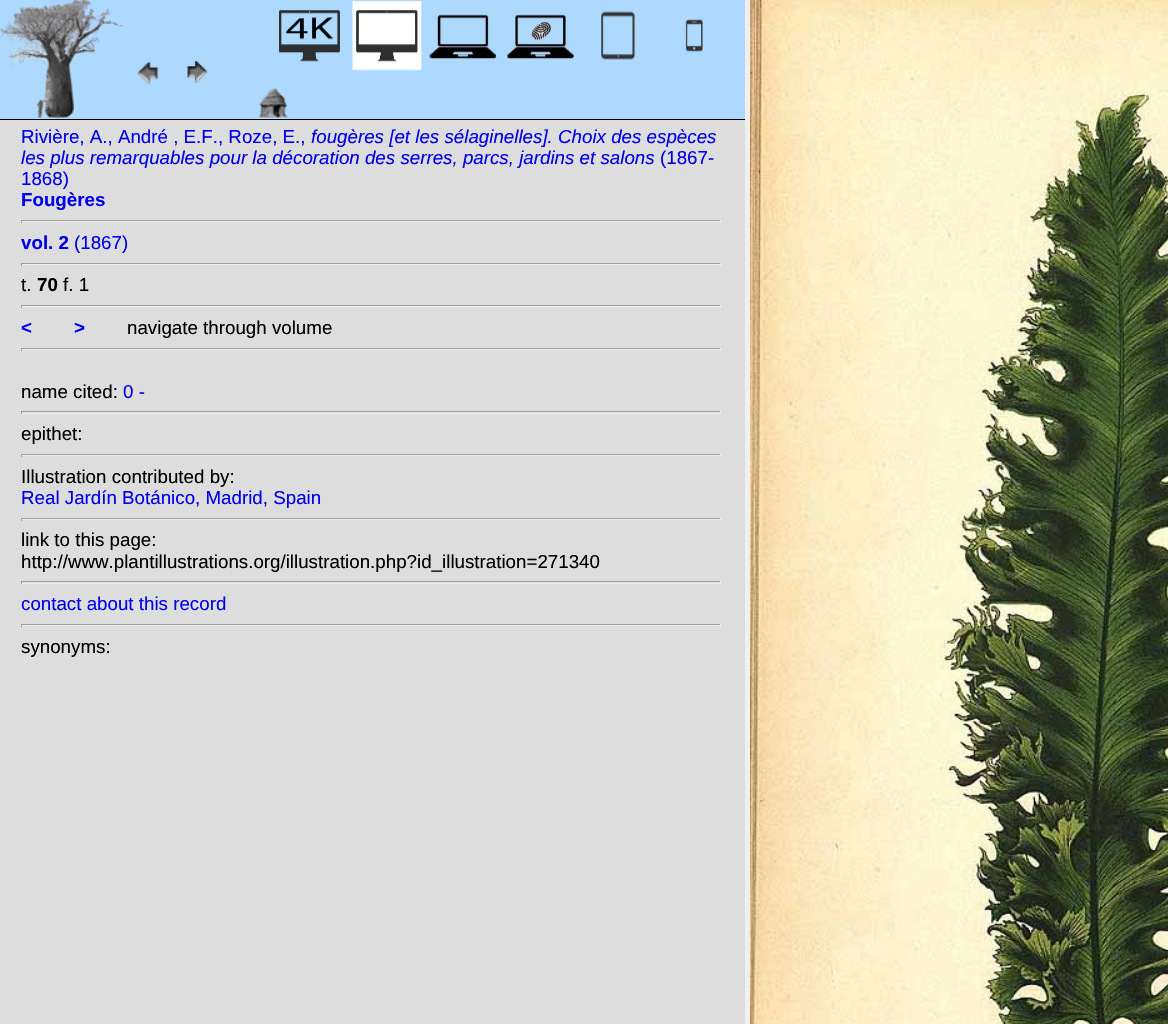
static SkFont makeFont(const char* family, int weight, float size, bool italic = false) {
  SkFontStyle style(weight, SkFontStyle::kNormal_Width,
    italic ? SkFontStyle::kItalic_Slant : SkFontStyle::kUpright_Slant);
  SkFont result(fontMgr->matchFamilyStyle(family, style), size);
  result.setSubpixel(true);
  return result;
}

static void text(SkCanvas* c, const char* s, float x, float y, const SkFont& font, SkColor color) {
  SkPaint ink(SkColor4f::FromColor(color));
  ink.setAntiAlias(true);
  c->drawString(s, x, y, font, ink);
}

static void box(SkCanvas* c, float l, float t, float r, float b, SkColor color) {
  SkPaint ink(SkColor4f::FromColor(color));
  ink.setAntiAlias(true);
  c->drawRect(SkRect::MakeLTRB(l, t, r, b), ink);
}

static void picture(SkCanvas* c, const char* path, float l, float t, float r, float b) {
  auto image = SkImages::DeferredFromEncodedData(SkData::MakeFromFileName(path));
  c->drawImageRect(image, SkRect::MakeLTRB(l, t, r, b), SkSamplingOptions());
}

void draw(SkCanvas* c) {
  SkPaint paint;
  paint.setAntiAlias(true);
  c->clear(0xfff0f0f0);
  box(c, 0, 120, 745, 1024, 0xffdddddd);
  box(c, 0, 0, 745, 119, 0xffadd9fe);
  box(c, 0, 119, 745, 120, 0xff000000);
  picture(c, "img_01.png", 0, 0, 123, 118);
  picture(c, "img_02.png", 137, 61, 159, 85);
  picture(c, "img_03.png", 187, 61, 208, 83);
  picture(c, "img_04.png", 277, 10, 340, 62);
  picture(c, "img_05.png", 352, 1, 422, 71);
  picture(c, "img_06.png", 428, 11, 498, 60);
  picture(c, "img_07.png", 506, 11, 575, 60);
  picture(c, "img_08.png", 601, 11, 636, 60);
  picture(c, "img_09.png", 685, 19, 703, 52);
  picture(c, "img_10.png", 259, 87, 288, 118);
  SkFont face1 = makeFont("Liberation Sans", 400, 18.75f);
  text(c, "Rivière, A., André , E.F., Roze, E.,", 21, 143, face1, 0xff0000ee);
  SkFont face2 = makeFont("Liberation Sans", 400, 18.75f, true);
  text(c, "fougères [et les sélaginelles]. Choix des espèces", 311, 143, face2, 0xff0000ee);
  text(c, "les plus remarquables pour la décoration des serres, parcs, jardins et salons", 21, 164, face2, 0xff0000ee);
  text(c, "(1867-", 660, 164, face1, 0xff0000ee);
  text(c, "1868)", 21, 185, face1, 0xff0000ee);
  SkFont face3 = makeFont("Liberation Sans", 700, 18.75f);
  text(c, "Fougères", 21, 206, face3, 0xff0000ee);
  box(c, 21, 220, 721, 221, 0xff9f9f9f);
  box(c, 720, 220, 721, 223, 0xffeeeeee);
  box(c, 21, 221, 721, 222, 0xffeeeeee);
  box(c, 21, 220, 22, 223, 0xff9f9f9f);
  text(c, "vol. 2", 21, 249, face3, 0xff0000ee);
  text(c, "(1867)", 74, 249, face1, 0xff0000ee);
  box(c, 21, 263, 721, 264, 0xff9f9f9f);
  box(c, 720, 263, 721, 266, 0xffeeeeee);
  box(c, 21, 264, 721, 265, 0xffeeeeee);
  box(c, 21, 263, 22, 266, 0xff9f9f9f);
  text(c, "t.", 21, 291, face1, 0xff000000);
  text(c, "70", 37, 291, face3, 0xff000000);
  text(c, "f. 1", 63, 291, face1, 0xff000000);
  box(c, 21, 305, 721, 306, 0xff9f9f9f);
  box(c, 720, 305, 721, 308, 0xffeeeeee);
  box(c, 21, 306, 721, 307, 0xffeeeeee);
  box(c, 21, 305, 22, 308, 0xff9f9f9f);
  text(c, "<", 21, 334, face3, 0xff0000ee);
  text(c, ">", 74, 334, face3, 0xff0000ee);
  text(c, "navigate through volume", 127, 334, face1, 0xff000000);
  box(c, 21, 348, 721, 349, 0xff9f9f9f);
  box(c, 720, 348, 721, 351, 0xffeeeeee);
  box(c, 21, 349, 721, 350, 0xffeeeeee);
  box(c, 21, 348, 22, 351, 0xff9f9f9f);
  text(c, "name cited:", 21, 398, face1, 0xff000000);
  text(c, "0 -", 123, 398, face1, 0xff0000ee);
  box(c, 21, 411, 721, 412, 0xff9f9f9f);
  box(c, 720, 411, 721, 414, 0xffeeeeee);
  box(c, 21, 413, 721, 414, 0xffeeeeee);
  box(c, 21, 411, 22, 414, 0xff9f9f9f);
  text(c, "epithet:", 21, 440, face1, 0xff000000);
  box(c, 21, 454, 721, 455, 0xff9f9f9f);
  box(c, 720, 454, 721, 457, 0xffeeeeee);
  box(c, 21, 455, 721, 456, 0xffeeeeee);
  box(c, 21, 454, 22, 457, 0xff9f9f9f);
  text(c, "Illustration contributed by:", 21, 483, face1, 0xff000000);
  text(c, "Real Jardín Botánico, Madrid, Spain", 21, 504, face1, 0xff0000ee);
  box(c, 21, 518, 721, 519, 0xff9f9f9f);
  box(c, 720, 518, 721, 521, 0xffeeeeee);
  box(c, 21, 519, 721, 520, 0xffeeeeee);
  box(c, 21, 518, 22, 521, 0xff9f9f9f);
  text(c, "link to this page:", 21, 546, face1, 0xff000000);
  text(c, "http://www.plantillustrations.org/illustration.php?id_illustration=271340", 21, 568, face1, 0xff000000);
  box(c, 21, 581, 721, 582, 0xff9f9f9f);
  box(c, 720, 581, 721, 584, 0xffeeeeee);
  box(c, 21, 583, 721, 584, 0xffeeeeee);
  box(c, 21, 581, 22, 584, 0xff9f9f9f);
  text(c, "contact about this record", 21, 610, face1, 0xff0000ee);
  box(c, 21, 624, 721, 625, 0xff9f9f9f);
  box(c, 720, 624, 721, 627, 0xffeeeeee);
  box(c, 21, 625, 721, 626, 0xffeeeeee);
  box(c, 21, 624, 22, 627, 0xff9f9f9f);
  text(c, "synonyms:", 21, 653, face1, 0xff000000);
  picture(c, "img_11.png", 750, 0, 1168, 1024);
}
